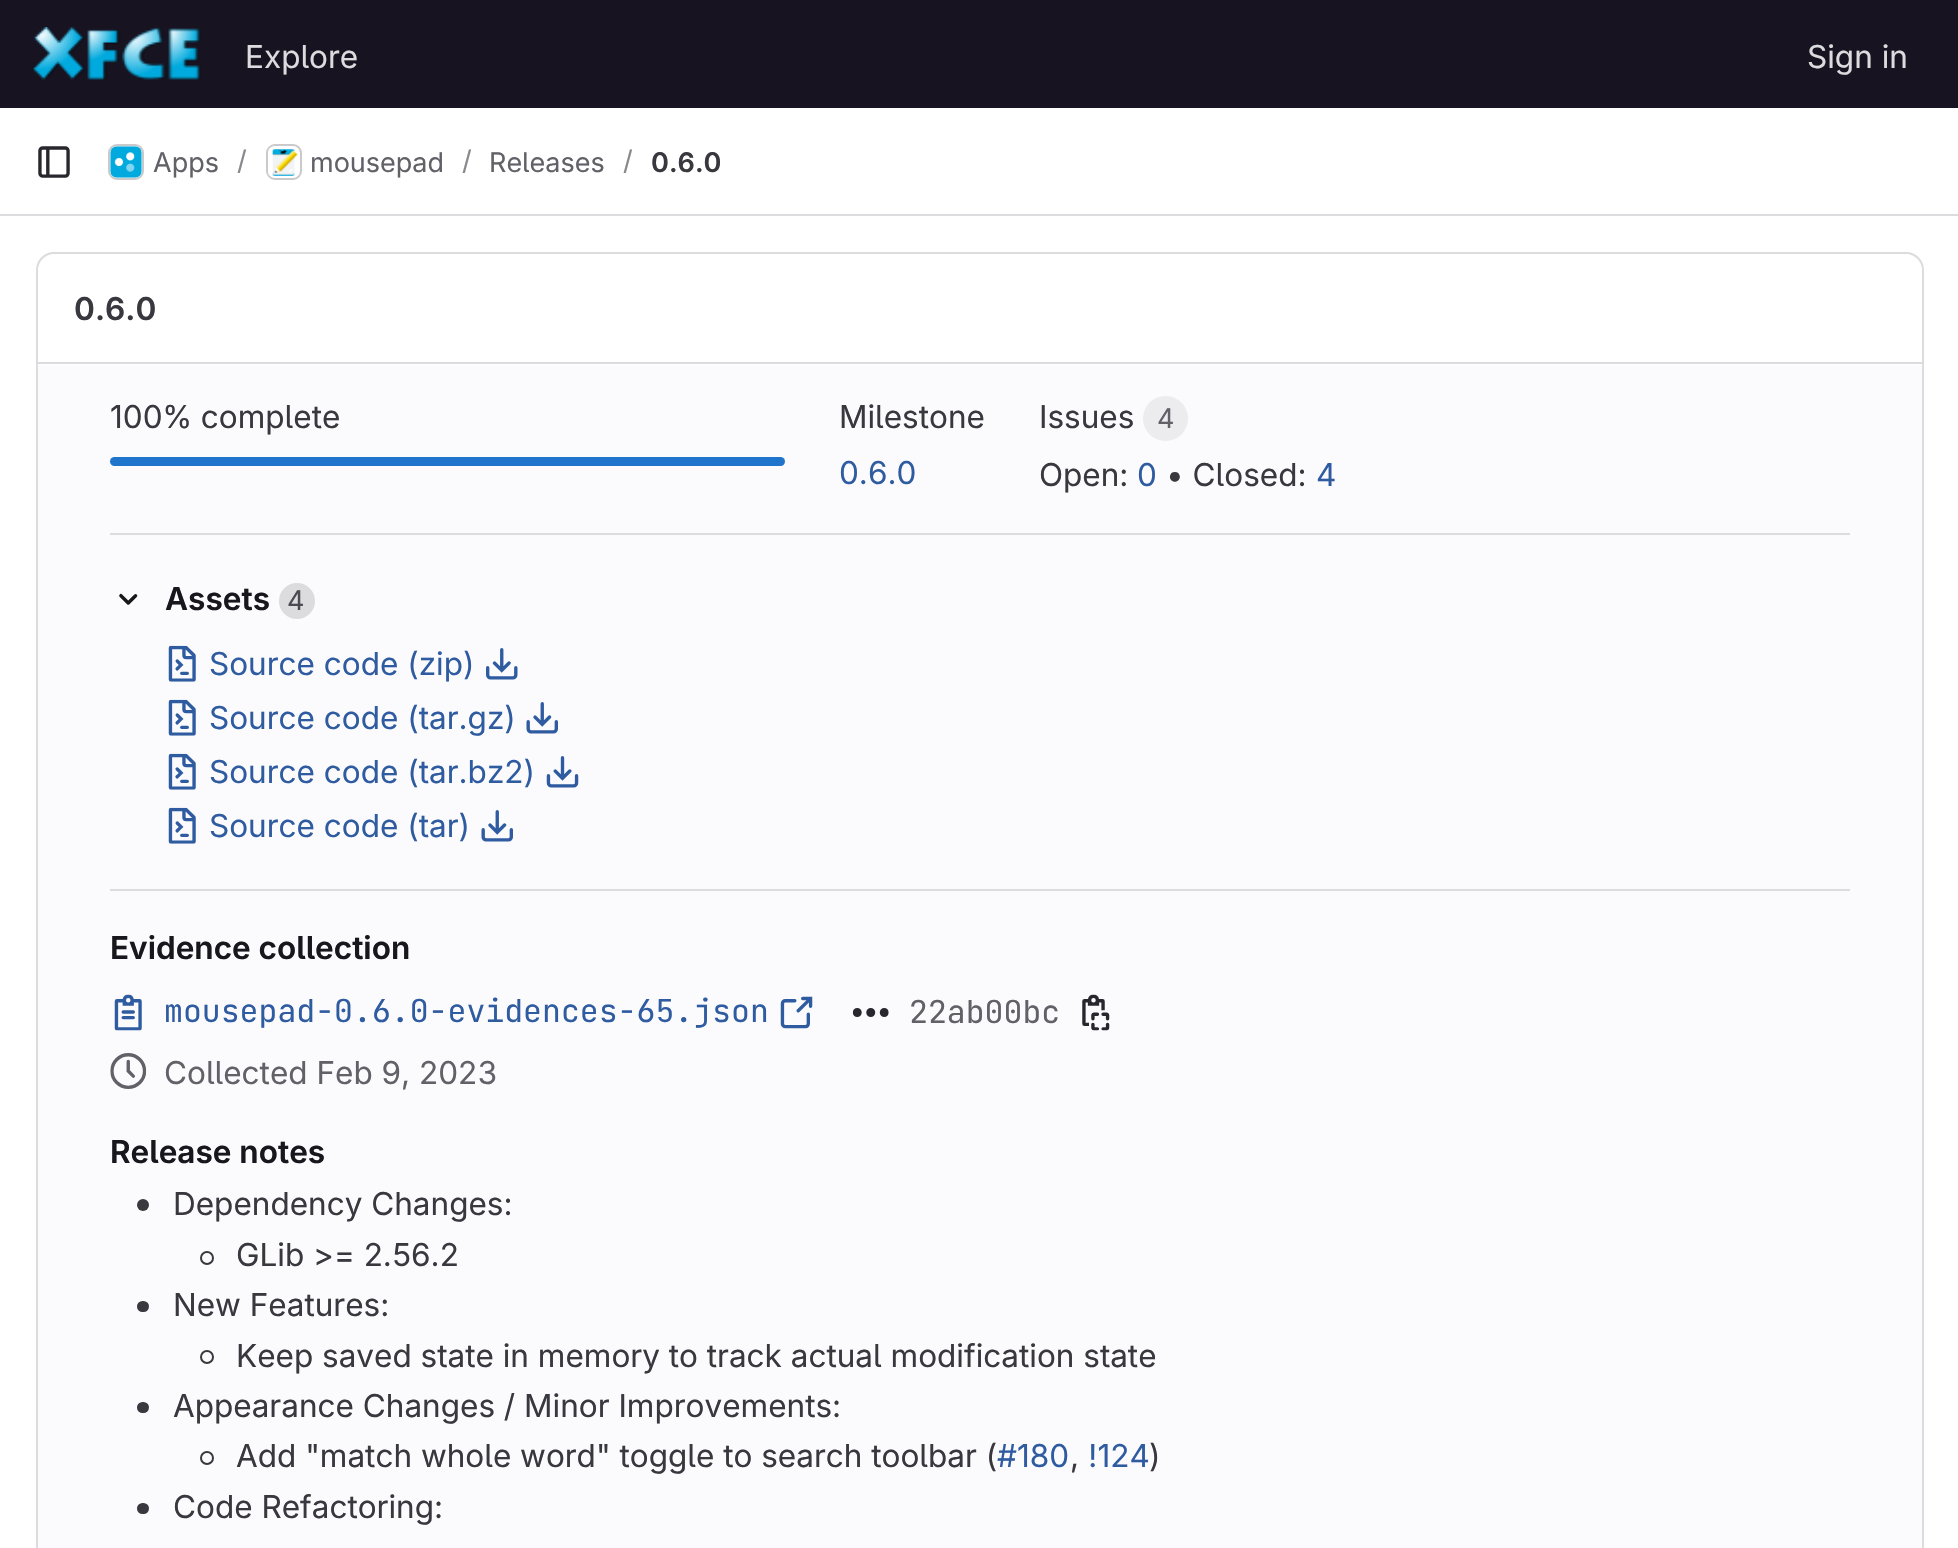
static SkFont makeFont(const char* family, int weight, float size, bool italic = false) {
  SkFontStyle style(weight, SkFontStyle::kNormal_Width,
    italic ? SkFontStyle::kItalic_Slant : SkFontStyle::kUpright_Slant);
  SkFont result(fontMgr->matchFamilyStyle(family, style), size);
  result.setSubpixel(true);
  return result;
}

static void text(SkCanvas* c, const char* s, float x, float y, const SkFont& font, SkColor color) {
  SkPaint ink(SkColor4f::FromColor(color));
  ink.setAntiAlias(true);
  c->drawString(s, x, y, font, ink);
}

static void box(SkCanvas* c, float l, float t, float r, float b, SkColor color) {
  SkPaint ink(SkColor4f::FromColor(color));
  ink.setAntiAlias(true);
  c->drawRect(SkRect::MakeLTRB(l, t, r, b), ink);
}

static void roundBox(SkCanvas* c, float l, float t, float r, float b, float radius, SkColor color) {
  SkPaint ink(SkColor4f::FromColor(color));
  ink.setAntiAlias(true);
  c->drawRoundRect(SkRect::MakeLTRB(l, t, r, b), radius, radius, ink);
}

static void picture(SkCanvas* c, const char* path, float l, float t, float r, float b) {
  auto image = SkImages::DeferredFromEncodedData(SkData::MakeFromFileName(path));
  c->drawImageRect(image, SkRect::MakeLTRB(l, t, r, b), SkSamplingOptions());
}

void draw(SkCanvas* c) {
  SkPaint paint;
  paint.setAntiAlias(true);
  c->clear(0xffffffff);
  box(c, 0, 0, 1958, 108, 0xff171321);
  picture(c, "img_01.png", 33, 27, 201, 80);
  SkFont face1 = makeFont("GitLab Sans", 400, 31.5f);
  text(c, "Explore", 245, 68, face1, 0xffdcdcde);
  text(c, "Sign in", 1807, 68, face1, 0xffdcdcde);
  box(c, 0, 214, 1958, 216, 0xffdcdcde);
  picture(c, "img_02.png", 38, 146, 70, 178);
  paint.setStyle(SkPaint::kStroke_Style);
  paint.setStrokeWidth(2);
  paint.setColor(0xffdcdcde);
  c->drawRoundRect(SkRect::MakeLTRB(109, 145, 143, 179), 8, 8, paint);
  picture(c, "img_03.png", 110, 146, 142, 178);
  paint.setColor(0x14050506);
  c->drawRoundRect(SkRect::MakeLTRB(109, 145, 143, 179), 8, 8, paint);
  SkFont face2 = makeFont("GitLab Sans", 400, 27);
  text(c, "Apps", 153, 172, face2, 0xff626168);
  text(c, "/", 237, 170, face2, 0xff89888d);
  paint.setColor(0xffdcdcde);
  c->drawRoundRect(SkRect::MakeLTRB(267, 145, 301, 179), 8, 8, paint);
  picture(c, "img_04.png", 268, 146, 298, 178);
  paint.setColor(0x14050506);
  c->drawRoundRect(SkRect::MakeLTRB(267, 145, 301, 179), 8, 8, paint);
  text(c, "mousepad", 310, 172, face2, 0xff626168);
  text(c, "/", 462, 170, face2, 0xff89888d);
  text(c, "Releases", 489, 172, face2, 0xff626168);
  text(c, "/", 623, 170, face2, 0xff89888d);
  SkFont face3 = makeFont("GitLab Sans", 600, 27);
  text(c, "0.6.0", 651, 172, face3, 0xff3a383f);
  paint.setStyle(SkPaint::kFill_Style);
  paint.setColor(0xfffbfafd);
  c->drawRoundRect(SkRect::MakeLTRB(37, 253, 1923, 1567), 17, 17, paint);
  paint.setStyle(SkPaint::kStroke_Style);
  paint.setColor(0xffdcdcde);
  c->drawRoundRect(SkRect::MakeLTRB(37, 253, 1923, 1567), 17, 17, paint);
  paint.setStyle(SkPaint::kFill_Style);
  paint.setColor(0xffffffff);
  c->drawPath(SkPathBuilder().moveTo(56, 254).lineTo(1904, 254).cubicTo(1914, 254, 1922, 262, 1922, 272).lineTo(1922, 365).lineTo(38, 365).lineTo(38, 272).cubicTo(38, 262, 46, 254, 56, 254).close().detach(), paint);
  box(c, 38, 362, 1922, 364, 0xffdcdcde);
  SkFont face4 = makeFont("GitLab Sans", 600, 31.5f);
  text(c, "0.6.0", 74, 320, face4, 0xff3a383f);
  box(c, 110, 533, 1850, 535, 0xffdcdcde);
  text(c, "100% complete", 110, 428, face1, 0xff3a383f);
  roundBox(c, 110, 457, 785, 466, 4.5f, 0xff1f75cb);
  text(c, "Milestone", 839, 428, face1, 0xff3a383f);
  text(c, "0.6.0", 839, 484, face1, 0xff2f5ca0);
  text(c, "Issues", 1039, 428, face1, 0xff3a383f);
  paint.setColor(0xffececef);
  c->drawCircle(1165.5f, 418.5f, 22.5f, paint);
  text(c, "4", 1157, 428, face2, 0xff626168);
  text(c, "Open:", 1039, 486, face1, 0xff3a383f);
  text(c, "0", 1137, 486, face1, 0xff2f5ca0);
  text(c, "• Closed:", 1166, 486, face1, 0xff3a383f);
  text(c, "4", 1316, 486, face1, 0xff2f5ca0);
  box(c, 110, 889, 1850, 891, 0xffdcdcde);
  picture(c, "img_05.png", 119, 593, 138, 605);
  text(c, "Assets", 165, 610, face4, 0xff18171d);
  paint.setColor(0xffdcdcde);
  c->drawCircle(297, 601, 18, paint);
  text(c, "4", 287, 610, face2, 0xff4c4b51);
  picture(c, "img_06.png", 168, 645, 196, 682);
  text(c, "Source code (zip)", 209, 675, face1, 0xff2f5ca0);
  picture(c, "img_07.png", 486, 648, 518, 680);
  picture(c, "img_06.png", 168, 699, 196, 736);
  text(c, "Source code (tar.gz)", 209, 729, face1, 0xff2f5ca0);
  picture(c, "img_08.png", 526, 702, 558, 734);
  picture(c, "img_09.png", 168, 753, 196, 790);
  text(c, "Source code (tar.bz2)", 209, 783, face1, 0xff2f5ca0);
  picture(c, "img_10.png", 546, 756, 579, 788);
  picture(c, "img_06.png", 168, 807, 196, 844);
  text(c, "Source code (tar)", 209, 837, face1, 0xff2f5ca0);
  picture(c, "img_11.png", 481, 810, 513, 842);
  text(c, "Evidence collection", 110, 959, face4, 0xff18171d);
  picture(c, "img_12.png", 114, 994, 142, 1031);
  SkFont face5 = makeFont("JetBrains Mono", 400, 31.5f);
  text(c, "mousepad-0.6.0-evidences-65.json", 164, 1022, face5, 0xff2f5ca0);
  picture(c, "img_13.png", 780, 996, 813, 1029);
  picture(c, "img_14.png", 852, 1008, 889, 1017);
  text(c, "22ab00bc", 909, 1023, face5, 0xff626168);
  picture(c, "img_15.png", 1082, 994, 1110, 1031);
  picture(c, "img_16.png", 110, 1053, 147, 1089);
  text(c, "Collected Feb 9, 2023", 164, 1084, face1, 0xff626168);
  text(c, "Release notes", 110, 1163, face4, 0xff18171d);
  paint.setColor(0xff3a383f);
  c->drawCircle(143, 1205, 6, paint);
  text(c, "Dependency Changes:", 173, 1215, face1, 0xff3a383f);
  paint.setStyle(SkPaint::kStroke_Style);
  c->drawCircle(207, 1258, 6, paint);
  text(c, "GLib >= 2.56.2", 236, 1266, face1, 0xff3a383f);
  roundBox(c, 137, 1301, 149, 1312, 5.5f, 0xff3a383f);
  text(c, "New Features:", 173, 1316, face1, 0xff3a383f);
  c->drawCircle(207, 1357, 6, paint);
  text(c, "Keep saved state in memory to track actual modification state", 236, 1367, face1, 0xff3a383f);
  roundBox(c, 137, 1402, 149, 1413, 5.5f, 0xff3a383f);
  text(c, "Appearance Changes / Minor Improvements:", 173, 1417, face1, 0xff3a383f);
  c->drawCircle(207, 1458, 6, paint);
  text(c, "Add \"match whole word\" toggle to search toolbar (", 236, 1467, face1, 0xff3a383f);
  text(c, "#180", 997, 1467, face1, 0xff2f5ca0);
  text(c, "!124", 1088, 1467, face1, 0xff2f5ca0);
  text(c, ")", 1149, 1467, face1, 0xff3a383f);
  text(c, ",", 1070, 1467, face1, 0xff3a383f);
  roundBox(c, 137, 1503, 149, 1514, 5.5f, 0xff3a383f);
  text(c, "Code Refactoring:", 173, 1518, face1, 0xff3a383f);
}
